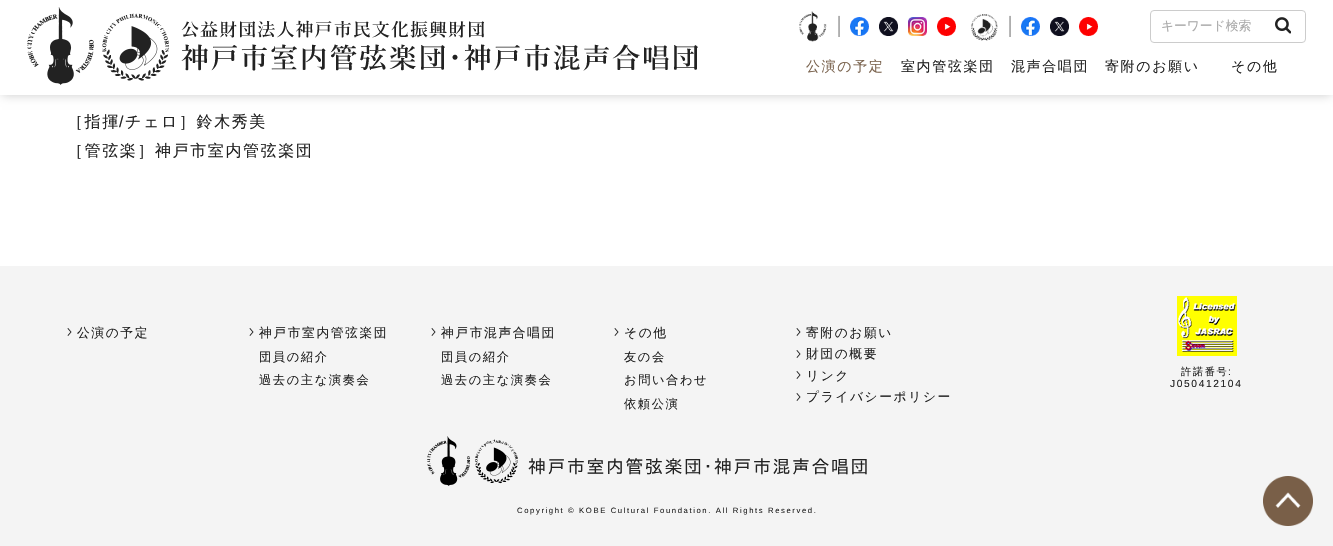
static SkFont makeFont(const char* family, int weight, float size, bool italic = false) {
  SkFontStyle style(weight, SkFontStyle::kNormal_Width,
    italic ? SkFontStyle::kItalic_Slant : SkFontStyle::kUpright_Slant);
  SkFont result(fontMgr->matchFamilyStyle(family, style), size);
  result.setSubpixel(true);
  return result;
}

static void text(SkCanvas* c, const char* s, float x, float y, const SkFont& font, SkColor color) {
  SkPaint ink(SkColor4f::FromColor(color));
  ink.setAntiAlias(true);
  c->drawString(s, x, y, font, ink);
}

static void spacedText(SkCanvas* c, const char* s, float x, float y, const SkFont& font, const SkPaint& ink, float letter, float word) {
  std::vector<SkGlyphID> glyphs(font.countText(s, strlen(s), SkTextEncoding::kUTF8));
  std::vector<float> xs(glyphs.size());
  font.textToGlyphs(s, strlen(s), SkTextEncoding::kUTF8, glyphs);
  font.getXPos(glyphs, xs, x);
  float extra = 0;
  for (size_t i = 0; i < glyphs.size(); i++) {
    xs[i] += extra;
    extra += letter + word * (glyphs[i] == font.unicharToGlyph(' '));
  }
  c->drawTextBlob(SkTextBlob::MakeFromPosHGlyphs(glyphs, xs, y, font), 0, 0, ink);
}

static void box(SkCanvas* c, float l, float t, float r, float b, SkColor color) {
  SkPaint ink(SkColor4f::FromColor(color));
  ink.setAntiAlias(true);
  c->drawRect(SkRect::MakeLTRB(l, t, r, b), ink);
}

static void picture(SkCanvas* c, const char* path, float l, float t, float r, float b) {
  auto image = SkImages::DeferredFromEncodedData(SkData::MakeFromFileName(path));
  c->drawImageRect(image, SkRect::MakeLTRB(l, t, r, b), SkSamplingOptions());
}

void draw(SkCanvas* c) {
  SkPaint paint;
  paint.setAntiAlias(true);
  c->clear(0xffffffff);
  paint.setColor(0x33000000);
  paint.setMaskFilter(SkMaskFilter::MakeBlur(kNormal_SkBlurStyle, 5));
  c->drawRect(SkRect::MakeLTRB(2, 4, 1331, 95), paint);
  paint.setMaskFilter(nullptr);
  box(c, 0, 0, 1333, 95, 0xffffffff);
  picture(c, "img_01.png", 27, 7, 698, 85);
  picture(c, "img_02.png", 799, 11, 840, 42);
  picture(c, "img_03.png", 850, 17, 869, 36);
  picture(c, "img_04.png", 879, 17, 898, 36);
  picture(c, "img_05.png", 908, 17, 927, 36);
  picture(c, "img_06.png", 937, 17, 956, 36);
  picture(c, "img_07.png", 971, 14, 1011, 41);
  picture(c, "img_08.png", 1021, 17, 1040, 36);
  picture(c, "img_04.png", 1050, 17, 1069, 36);
  picture(c, "img_09.png", 1079, 17, 1098, 36);
  paint.setStyle(SkPaint::kStroke_Style);
  paint.setStrokeWidth(1);
  paint.setColor(0xffcccccc);
  c->drawRoundRect(SkRect::MakeLTRB(1150.5f, 10.5f, 1305.5f, 42.5f), 3.5f, 3.5f, paint);
  paint.setStyle(SkPaint::kFill_Style);
  paint.setColor(0xffffffff);
  c->drawPath(SkPathBuilder().moveTo(1166, 13).lineTo(1305, 13).lineTo(1305, 38).lineTo(1166, 38).cubicTo(1163, 38, 1161, 36, 1161, 33).lineTo(1161, 18).cubicTo(1161, 15, 1163, 13, 1166, 13).close().detach(), paint);
  SkFont face1 = makeFont("WenQuanYi Zen Hei", 500, 12.75f);
  text(c, "キーワード検索", 1161, 30, face1, 0xffaaaaaa);
  picture(c, "img_10.png", 1275, 17, 1291, 34);
  SkFont face2 = makeFont("WenQuanYi Zen Hei", 500, 14);
  paint.setColor(0xff7b644f);
  spacedText(c, "公演の予定", 806, 71, face2, paint, 1.6f, 0);
  paint.setColor(0xff222222);
  spacedText(c, "室内管弦楽団", 901, 71, face2, paint, 1.6f, 0);
  spacedText(c, "混声合唱団", 1011, 71, face2, paint, 1.6f, 0);
  spacedText(c, "寄附のお願い", 1105, 71, face2, paint, 1.6f, 0);
  spacedText(c, "その他", 1231, 71, face2, paint, 1.6f, 0);
  SkFont face3 = makeFont("WenQuanYi Zen Hei", 500, 16);
  spacedText(c, "［指揮", 67, 127, face3, paint, 1.6f, 0);
  SkFont face4 = makeFont("Liberation Sans", 400, 16);
  spacedText(c, "/", 119, 127, face4, paint, 1.6f, 0);
  spacedText(c, "チェロ］鈴木秀美", 125, 127, face3, paint, 1.6f, 0);
  spacedText(c, "［管弦楽］神戸市室内管弦楽団", 67, 156, face3, paint, 1.6f, 0);
  box(c, 0, 266, 1333, 546, 0xfff4f4f4);
  picture(c, "img_11.png", 67, 328, 72, 336);
  spacedText(c, "公演の予定", 77, 337, face1, paint, 1.6f, 0);
  picture(c, "img_11.png", 249, 328, 254, 336);
  spacedText(c, "神戸市室内管弦楽団", 259, 337, face1, paint, 1.6f, 0);
  SkFont face5 = makeFont("WenQuanYi Zen Hei", 500, 12.25f);
  spacedText(c, "団員の紹介", 259, 361, face5, paint, 1.6f, 0);
  spacedText(c, "過去の主な演奏会", 259, 384, face5, paint, 1.6f, 0);
  picture(c, "img_11.png", 431, 328, 436, 336);
  spacedText(c, "神戸市混声合唱団", 441, 337, face1, paint, 1.6f, 0);
  spacedText(c, "団員の紹介", 441, 361, face5, paint, 1.6f, 0);
  spacedText(c, "過去の主な演奏会", 441, 384, face5, paint, 1.6f, 0);
  picture(c, "img_11.png", 614, 328, 619, 336);
  spacedText(c, "その他", 624, 337, face1, paint, 1.6f, 0);
  spacedText(c, "友の会", 624, 361, face5, paint, 1.6f, 0);
  spacedText(c, "お問い合わせ", 624, 384, face5, paint, 1.6f, 0);
  spacedText(c, "依頼公演", 624, 408, face5, paint, 1.6f, 0);
  picture(c, "img_11.png", 796, 328, 801, 336);
  spacedText(c, "寄附のお願い", 806, 337, face1, paint, 1.6f, 0);
  picture(c, "img_11.png", 796, 350, 801, 358);
  spacedText(c, "財団の概要", 806, 358, face1, paint, 1.6f, 0);
  picture(c, "img_11.png", 796, 371, 801, 379);
  spacedText(c, "リンク", 806, 380, face1, paint, 1.6f, 0);
  picture(c, "img_11.png", 796, 393, 801, 401);
  spacedText(c, "プライバシーポリシー", 806, 401, face1, paint, 1.6f, 0);
  picture(c, "img_12.png", 1177, 296, 1237, 356);
  SkFont face6 = makeFont("WenQuanYi Zen Hei", 500, 10.25f);
  spacedText(c, "許諾番号", 1181, 375, face6, paint, 1.6f, 0);
  SkFont face7 = makeFont("Liberation Sans", 400, 10.25f);
  spacedText(c, ":", 1228, 375, face7, paint, 1.6f, 0);
  spacedText(c, "J050412104", 1170, 387, face7, paint, 1.6f, 0);
  picture(c, "img_13.png", 427, 436, 518, 486);
  SkFont face8 = makeFont("IPAPGothic", 400, 17.9f);
  spacedText(c, "神戸市室内管弦楽団･神戸市混声合唱団", 528, 473, face8, paint, 1.6f, 0);
  SkFont face9 = makeFont("Liberation Sans", 400, 7.7f);
  spacedText(c, "Copyright © KOBE Cultural Foundation. All Rights Reserved.", 517, 513, face9, paint, 1.6f, 0);
  picture(c, "img_14.png", 1263, 476, 1313, 526);
}
